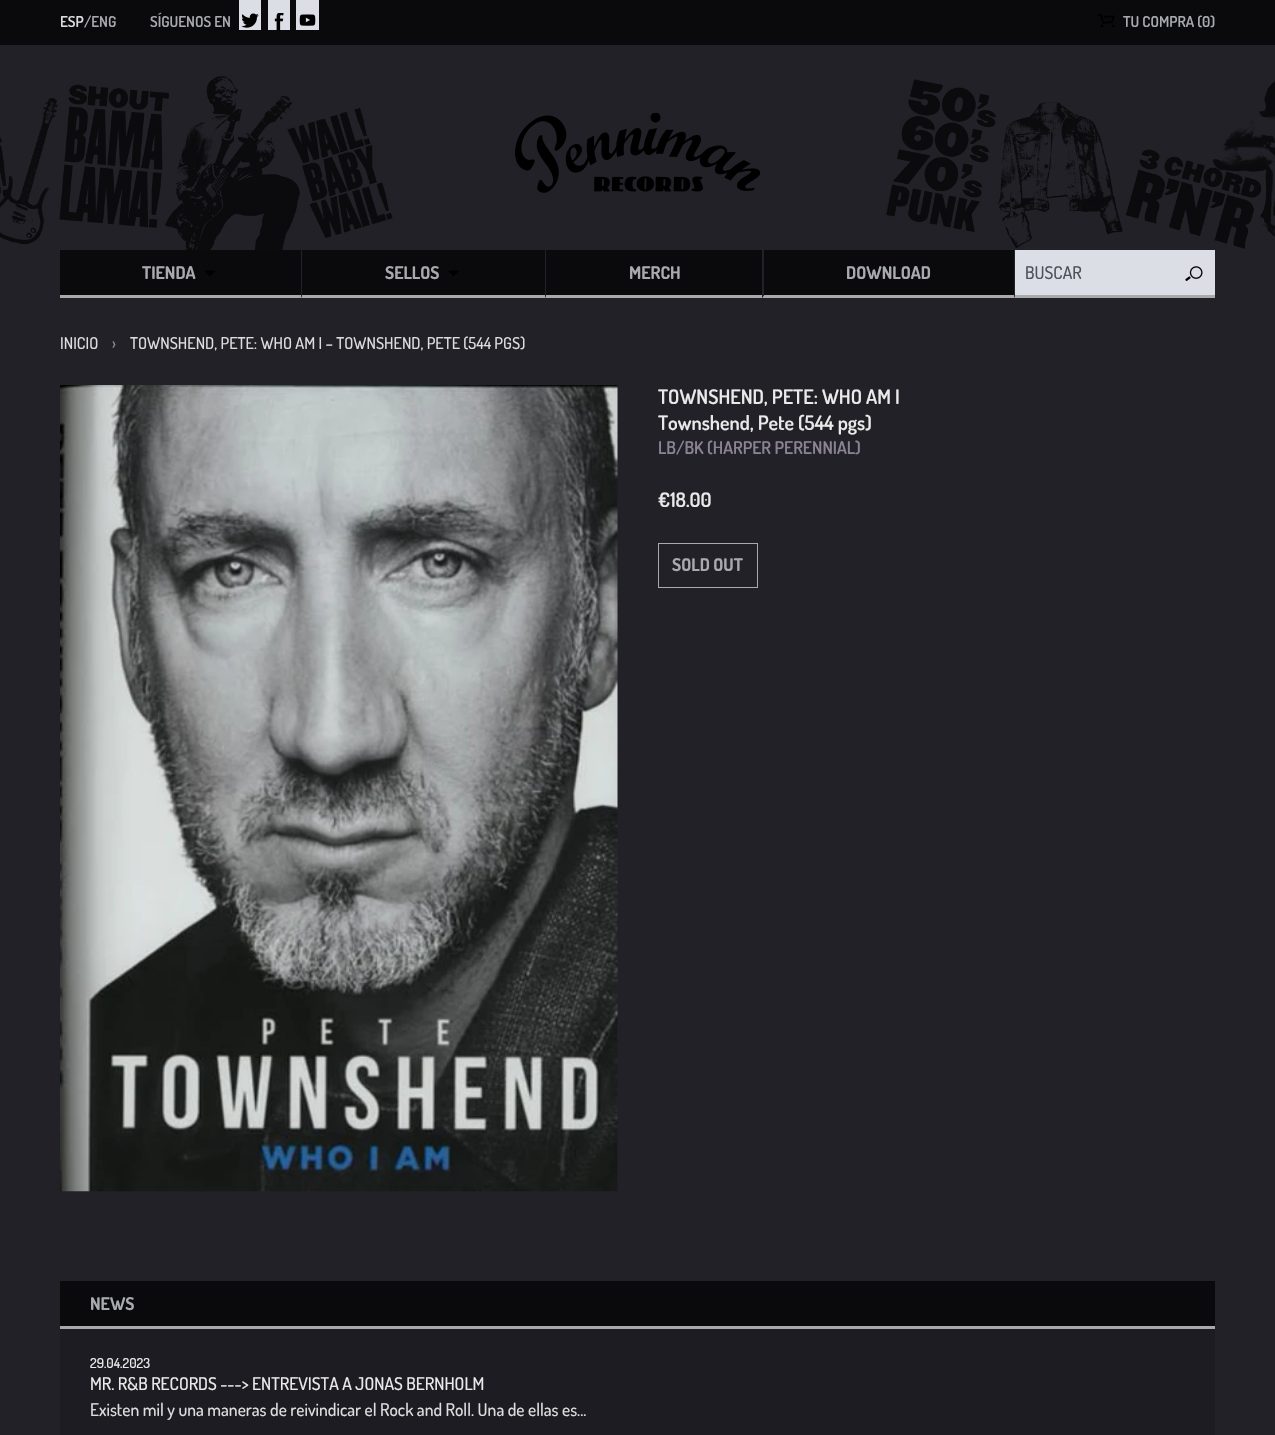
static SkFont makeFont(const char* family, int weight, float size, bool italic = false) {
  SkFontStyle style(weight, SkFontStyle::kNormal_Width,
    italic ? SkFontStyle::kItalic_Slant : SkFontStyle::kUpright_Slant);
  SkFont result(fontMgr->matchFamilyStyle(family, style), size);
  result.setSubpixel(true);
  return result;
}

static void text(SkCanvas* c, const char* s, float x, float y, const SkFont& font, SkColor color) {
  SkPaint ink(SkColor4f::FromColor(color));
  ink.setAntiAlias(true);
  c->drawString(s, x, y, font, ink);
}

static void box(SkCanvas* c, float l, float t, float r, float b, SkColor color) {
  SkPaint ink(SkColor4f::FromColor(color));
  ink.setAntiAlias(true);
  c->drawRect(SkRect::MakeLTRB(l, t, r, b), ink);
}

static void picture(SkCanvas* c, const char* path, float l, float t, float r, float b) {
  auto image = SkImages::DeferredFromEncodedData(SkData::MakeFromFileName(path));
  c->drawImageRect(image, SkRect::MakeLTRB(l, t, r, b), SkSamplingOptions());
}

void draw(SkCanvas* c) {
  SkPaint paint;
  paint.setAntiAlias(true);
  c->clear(0xff222128);
  box(c, 0, 0, 1275, 45, 0xff0a0a0c);
  SkFont face1 = makeFont("Dosis", 600, 15);
  text(c, "ESP", 60, 27, face1, 0xffdcddde);
  text(c, "/ENG", 84, 27, face1, 0xffa8aaad);
  text(c, "SÍGUENOS EN", 150, 27, face1, 0xffa8aaad);
  box(c, 239, 0, 261, 30, 0xffdcdee6);
  picture(c, "img_01.png", 241, 13, 259, 28);
  box(c, 268, 0, 290, 30, 0xffdcdee6);
  picture(c, "img_02.png", 274, 13, 284, 30);
  box(c, 296, 0, 319, 30, 0xffdcdee6);
  picture(c, "img_03.png", 299, 14, 316, 26);
  picture(c, "img_04.png", 1097, 14, 1115, 27);
  text(c, "TU COMPRA (0)", 1123, 27, face1, 0xffa8aaad);
  picture(c, "img_05.png", 0, 76, 393, 250);
  picture(c, "img_06.png", 515, 113, 761, 193);
  picture(c, "img_07.png", 886, 79, 1275, 249);
  box(c, 60, 250, 301, 295, 0xff0a0a0c);
  box(c, 60, 295, 301, 298, 0xffa7a9ab);
  SkFont face2 = makeFont("Dosis", 700, 17.5f);
  text(c, "TIENDA", 142, 279, face2, 0xffa8aaad);
  paint.setColor(0xff000000);
  c->drawPath(SkPathBuilder().moveTo(216, 270.5f).lineTo(210, 276.5f).lineTo(204, 270.5f).close().detach(), paint);
  box(c, 301, 250, 763, 298, 0xff0a0a0c);
  paint.setColor(0xffa7a9ab);
  c->drawPath(SkPathBuilder().moveTo(545, 298).lineTo(301, 298).lineTo(302, 295).lineTo(545, 295).close().detach(), paint);
  paint.setColor(0xff212128);
  c->drawPath(SkPathBuilder().moveTo(301, 298).lineTo(301, 250).lineTo(302, 250).lineTo(302, 295).close().detach(), paint);
  text(c, "SELLOS", 385, 279, face2, 0xffa8aaad);
  paint.setColor(0xff000000);
  c->drawPath(SkPathBuilder().moveTo(459.5f, 270.5f).lineTo(453.5f, 276.5f).lineTo(448, 270.5f).close().detach(), paint);
  paint.setColor(0xffa7a9ab);
  c->drawPath(SkPathBuilder().moveTo(762, 298).lineTo(545, 298).lineTo(546, 295).lineTo(762, 295).close().detach(), paint);
  paint.setColor(0xff212128);
  c->drawPath(SkPathBuilder().moveTo(545, 298).lineTo(545, 250).lineTo(546, 250).lineTo(546, 295).close().detach(), paint);
  text(c, "MERCH", 629, 279, face2, 0xffa8aaad);
  box(c, 763, 250, 1014, 297, 0xff0a0a0c);
  paint.setColor(0xffa7a9ab);
  c->drawPath(SkPathBuilder().moveTo(1014, 298).lineTo(762, 298).lineTo(764, 295).lineTo(1014, 295).close().detach(), paint);
  paint.setColor(0xff212128);
  c->drawPath(SkPathBuilder().moveTo(762, 298).lineTo(762, 250).lineTo(764, 250).lineTo(764, 295).close().detach(), paint);
  text(c, "DOWNLOAD", 846, 279, face2, 0xffa8aaad);
  paint.setColor(0xffa7a9ab);
  c->drawPath(SkPathBuilder().moveTo(1215, 298).lineTo(1014, 298).lineTo(1015, 295).lineTo(1215, 295).close().detach(), paint);
  paint.setColor(0xff212128);
  c->drawPath(SkPathBuilder().moveTo(1014, 298).lineTo(1014, 250).lineTo(1015, 250).lineTo(1015, 295).close().detach(), paint);
  box(c, 1015, 250, 1215, 295, 0xffdcdee6);
  SkFont face3 = makeFont("Dosis", 500, 17.5f);
  text(c, "BUSCAR", 1025, 279, face3, 0xff4f515a);
  picture(c, "img_08.png", 1185, 266, 1203, 281);
  SkFont face4 = makeFont("Dosis", 500, 16.25f);
  text(c, "INICIO", 60, 349, face4, 0xffdcddde);
  text(c, "›", 112, 349, face4, 0xff8a8394);
  text(c, "TOWNSHEND, PETE: WHO AM I – TOWNSHEND, PETE (544 PGS)", 130, 349, face4, 0xffdcddde);
  picture(c, "img_09.png", 60, 385, 618, 1192);
  SkFont face5 = makeFont("Dosis", 600, 20);
  text(c, "TOWNSHEND, PETE: WHO AM I", 658, 404, face5, 0xffeaeaea);
  text(c, "Townshend, Pete (544 pgs)", 658, 430, face5, 0xffeaeaea);
  SkFont face6 = makeFont("Dosis", 600, 17.5f);
  text(c, "LB/BK (HARPER PERENNIAL)", 658, 454, face6, 0xff8a8394);
  text(c, "€18.00", 658, 507, face5, 0xffeaeaea);
  paint.setStyle(SkPaint::kStroke_Style);
  paint.setStrokeWidth(1);
  paint.setColor(0xffa8aaad);
  c->drawRect(SkRect::MakeLTRB(658.5f, 543.5f, 757.5f, 587.5f), paint);
  text(c, "SOLD OUT", 672, 571, face2, 0xffa8aaad);
  box(c, 60, 1329, 1215, 1435, 0xff1d1c23);
  box(c, 60, 1326, 1215, 1329, 0xffa7a9ab);
  box(c, 60, 1281, 1215, 1326, 0xff0a0a0c);
  text(c, "NEWS", 90, 1310, face2, 0xffa8aaad);
  SkFont face7 = makeFont("Dosis", 500, 13.75f);
  text(c, "29.04.2023", 90, 1368, face7, 0xffeaeaea);
  text(c, "MR. R&B RECORDS ---> ENTREVISTA A JONAS BERNHOLM", 90, 1390, face3, 0xffeaeaea);
  text(c, "Existen mil y una maneras de reivindicar el Rock and Roll. Una de ellas es...", 90, 1416, face3, 0xffdcddde);
}
